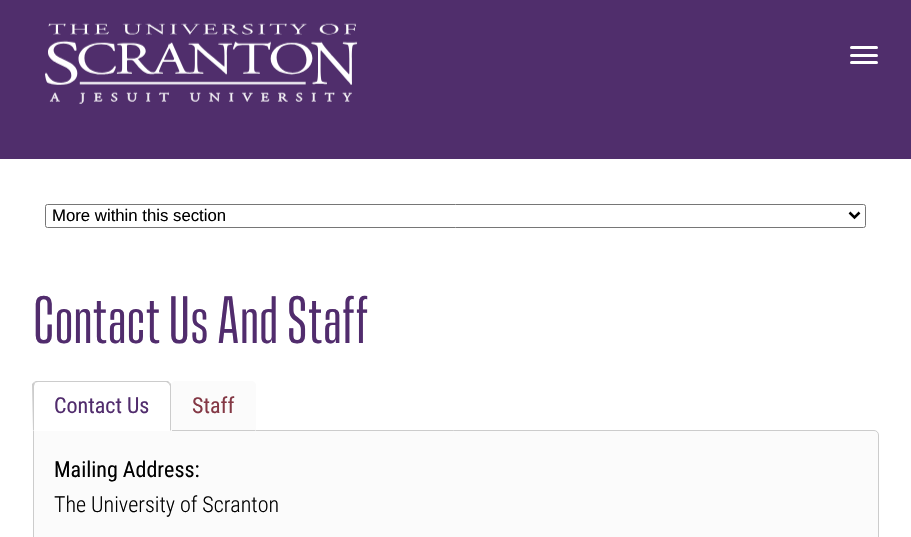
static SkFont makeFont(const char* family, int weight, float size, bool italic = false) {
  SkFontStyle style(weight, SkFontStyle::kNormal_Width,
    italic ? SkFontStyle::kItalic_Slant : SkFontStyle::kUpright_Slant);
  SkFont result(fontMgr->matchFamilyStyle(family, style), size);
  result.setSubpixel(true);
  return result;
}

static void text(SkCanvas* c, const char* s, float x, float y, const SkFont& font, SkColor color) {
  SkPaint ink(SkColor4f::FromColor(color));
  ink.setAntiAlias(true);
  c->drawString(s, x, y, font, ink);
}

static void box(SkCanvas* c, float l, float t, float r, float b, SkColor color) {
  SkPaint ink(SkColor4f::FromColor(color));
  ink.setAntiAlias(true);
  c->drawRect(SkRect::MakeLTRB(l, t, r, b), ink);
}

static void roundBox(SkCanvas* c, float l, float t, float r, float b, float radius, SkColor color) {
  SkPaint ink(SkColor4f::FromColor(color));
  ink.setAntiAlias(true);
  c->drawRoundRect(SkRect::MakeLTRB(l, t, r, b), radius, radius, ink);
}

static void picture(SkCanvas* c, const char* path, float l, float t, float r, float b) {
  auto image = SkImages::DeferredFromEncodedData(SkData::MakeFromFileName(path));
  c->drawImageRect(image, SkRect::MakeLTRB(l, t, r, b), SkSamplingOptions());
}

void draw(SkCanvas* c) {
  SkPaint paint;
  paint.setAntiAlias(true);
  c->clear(0xffffffff);
  box(c, 0, 0, 911, 159, 0xff502e6c);
  picture(c, "img_01.png", 45, 23, 358, 104);
  roundBox(c, 850, 46, 878, 49, 1.5f, 0xffffffff);
  roundBox(c, 850, 54, 878, 57, 1.5f, 0xffffffff);
  roundBox(c, 850, 61, 878, 64, 1.5f, 0xffffffff);
  paint.setStyle(SkPaint::kStroke_Style);
  paint.setStrokeWidth(1);
  paint.setColor(0xff767676);
  c->drawRoundRect(SkRect::MakeLTRB(45.5f, 204.5f, 865.5f, 227.5f), 2, 2, paint);
  paint.setStrokeWidth(2.5f);
  paint.setColor(0xff000000);
  c->drawPath(SkPathBuilder().moveTo(849.5f, 212.5f).lineTo(854.5f, 217.5f).lineTo(859.5f, 212.5f).detach(), paint);
  SkFont face1 = makeFont("Liberation Sans", 400, 16.75f);
  text(c, "More within this section", 52, 221, face1, 0xff000000);
  SkFont face2 = makeFont("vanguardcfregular", 400, 61);
  text(c, "Contact Us And Staff", 33, 343, face2, 0xff512c6d);
  paint.setStyle(SkPaint::kFill_Style);
  paint.setColor(0xfffbfbfb);
  c->drawPath(SkPathBuilder().moveTo(33.5f, 430.5f).lineTo(874, 430.5f).cubicTo(876.5f, 430.5f, 878.5f, 432.5f, 878.5f, 435).lineTo(878.5f, 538).cubicTo(878.5f, 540.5f, 876.5f, 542.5f, 874, 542.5f).lineTo(38, 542.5f).cubicTo(35.5f, 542.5f, 33.5f, 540.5f, 33.5f, 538).close().detach(), paint);
  paint.setStyle(SkPaint::kStroke_Style);
  paint.setStrokeWidth(1);
  paint.setColor(0xffcccccc);
  c->drawPath(SkPathBuilder().moveTo(33.5f, 430.5f).lineTo(874, 430.5f).cubicTo(876.5f, 430.5f, 878.5f, 432.5f, 878.5f, 435).lineTo(878.5f, 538).cubicTo(878.5f, 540.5f, 876.5f, 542.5f, 874, 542.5f).lineTo(38, 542.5f).cubicTo(35.5f, 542.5f, 33.5f, 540.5f, 33.5f, 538).close().detach(), paint);
  paint.setStyle(SkPaint::kFill_Style);
  paint.setColor(0xffffffff);
  c->drawPath(SkPathBuilder().moveTo(38, 381).lineTo(166, 381).cubicTo(169, 381, 171, 383, 171, 386).lineTo(171, 431).lineTo(33, 431).lineTo(33, 386).cubicTo(33, 383, 35, 381, 38, 381).close().detach(), paint);
  paint.setColor(0xffcccccc);
  c->drawPath(SkPathBuilder().moveTo(38, 382).cubicTo(36, 382, 35, 383, 35, 383).lineTo(34, 382).lineTo(36, 381).lineTo(168, 381).lineTo(170, 383).lineTo(169, 384).cubicTo(168, 383, 167, 382, 166, 382).close().detach(), paint);
  c->drawPath(SkPathBuilder().moveTo(170, 383).cubicTo(171, 383, 171, 385, 171, 386).lineTo(171, 431).lineTo(170, 430).lineTo(170, 386).lineTo(169, 384).close().detach(), paint);
  c->drawPath(SkPathBuilder().moveTo(32, 384).lineTo(34, 382).lineTo(35, 383).lineTo(34, 386).lineTo(34, 430).lineTo(33, 431).close().detach(), paint);
  SkFont face3 = makeFont("Roboto Condensed", 400, 22);
  text(c, "Contact Us", 54, 413, face3, 0xff512c6d);
  paint.setColor(0xfffbfbfb);
  c->drawPath(SkPathBuilder().moveTo(176, 381).lineTo(251, 381).cubicTo(254, 381, 256, 383, 256, 386).lineTo(256, 431).lineTo(171, 431).lineTo(171, 386).cubicTo(171, 383, 173, 381, 176, 381).close().detach(), paint);
  paint.setColor(0xffcccccc);
  c->drawPath(SkPathBuilder().moveTo(256, 431).lineTo(255, 430).lineTo(172, 430).lineTo(172, 431).close().detach(), paint);
  text(c, "Staff", 192, 413, face3, 0xff843845);
  text(c, "Mailing Address:", 54, 477, face3, 0xff000000);
  SkFont face4 = makeFont("Roboto Condensed", 300, 22);
  text(c, "The University of Scranton", 54, 512, face4, 0xff000000);
}
